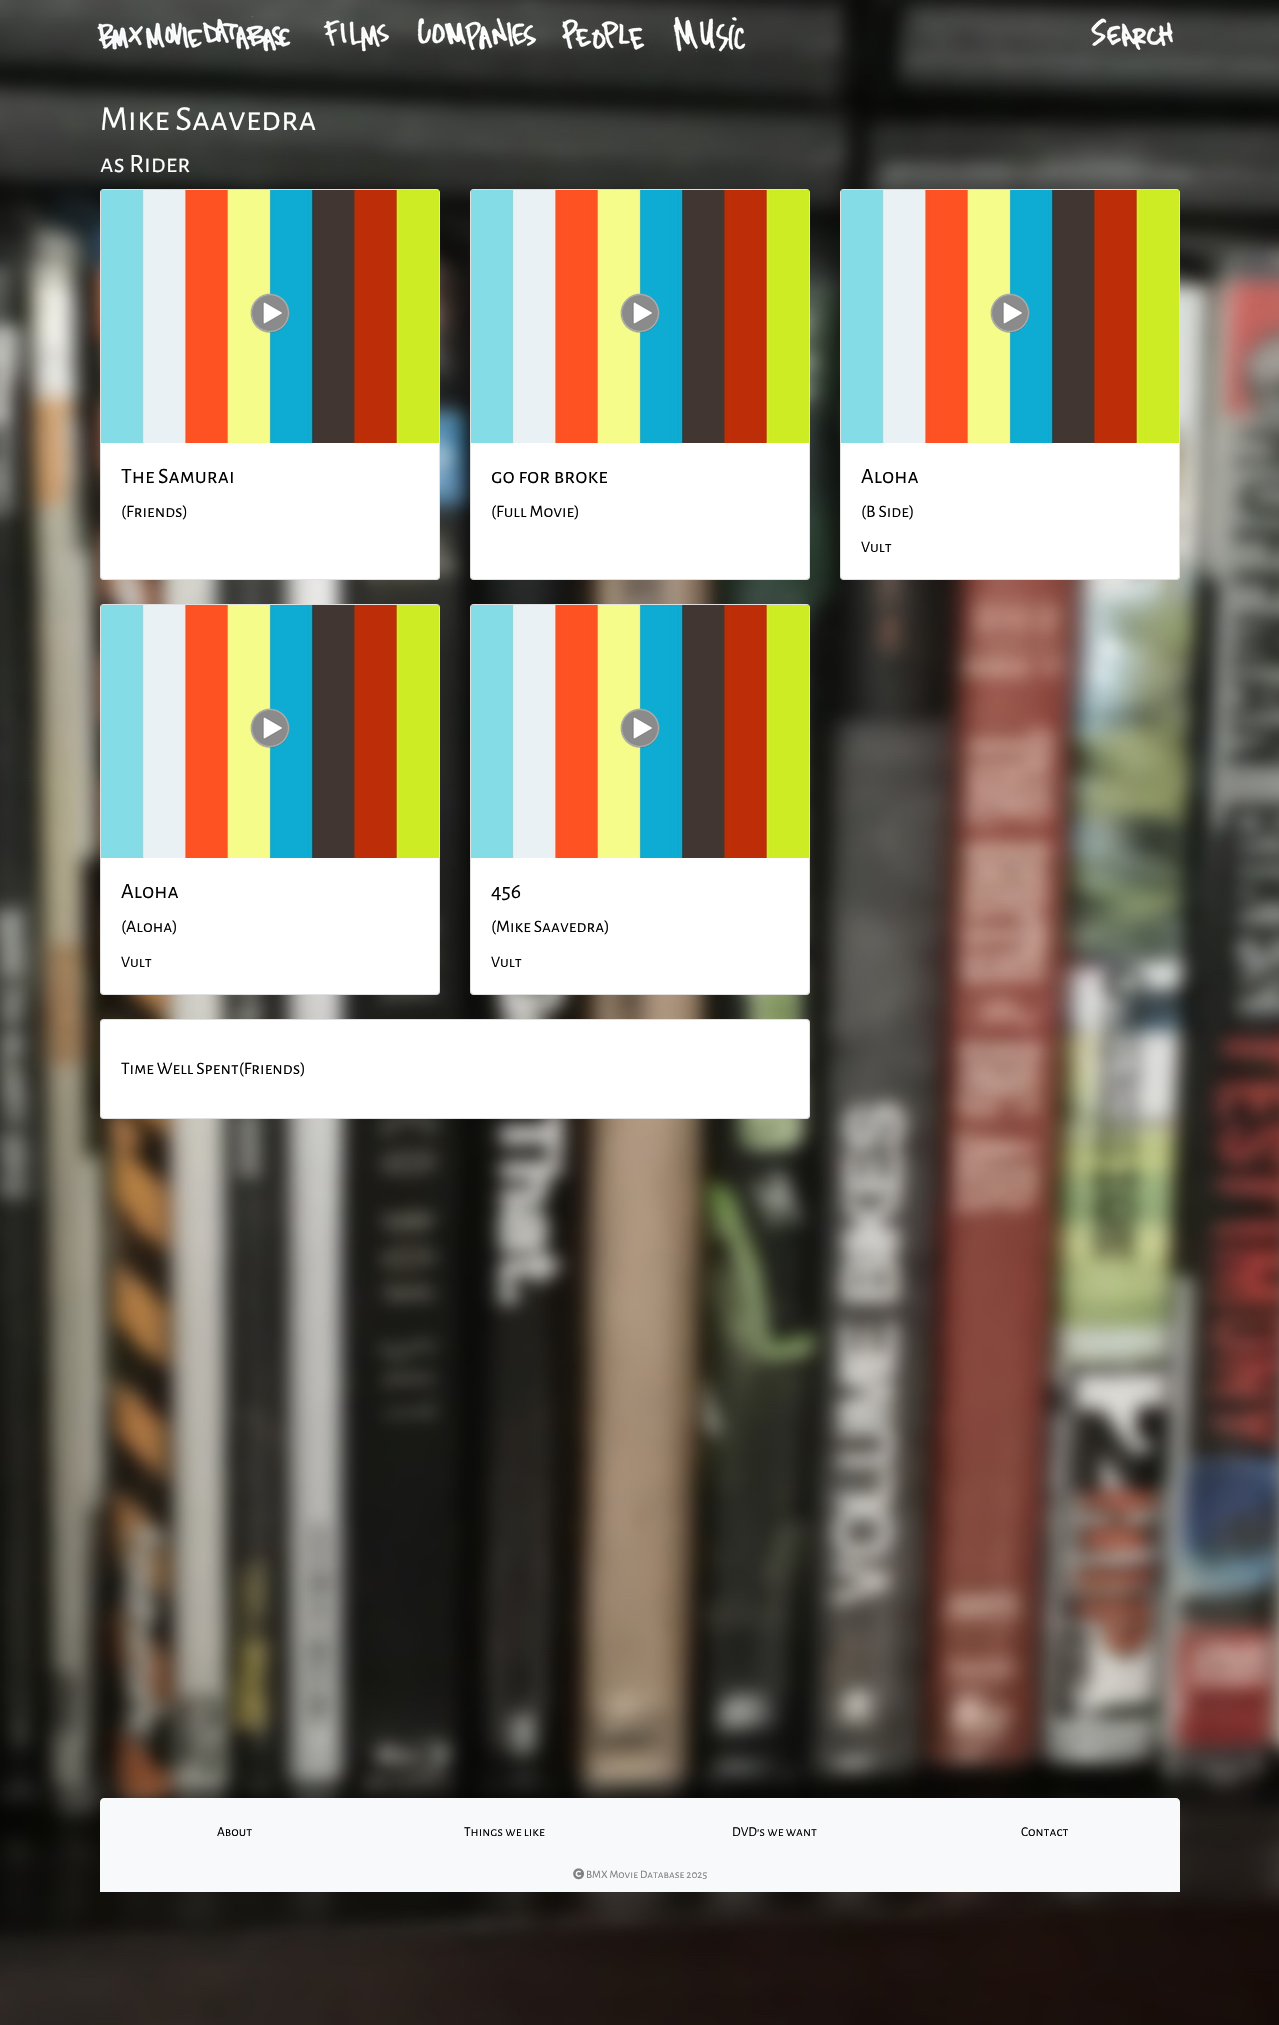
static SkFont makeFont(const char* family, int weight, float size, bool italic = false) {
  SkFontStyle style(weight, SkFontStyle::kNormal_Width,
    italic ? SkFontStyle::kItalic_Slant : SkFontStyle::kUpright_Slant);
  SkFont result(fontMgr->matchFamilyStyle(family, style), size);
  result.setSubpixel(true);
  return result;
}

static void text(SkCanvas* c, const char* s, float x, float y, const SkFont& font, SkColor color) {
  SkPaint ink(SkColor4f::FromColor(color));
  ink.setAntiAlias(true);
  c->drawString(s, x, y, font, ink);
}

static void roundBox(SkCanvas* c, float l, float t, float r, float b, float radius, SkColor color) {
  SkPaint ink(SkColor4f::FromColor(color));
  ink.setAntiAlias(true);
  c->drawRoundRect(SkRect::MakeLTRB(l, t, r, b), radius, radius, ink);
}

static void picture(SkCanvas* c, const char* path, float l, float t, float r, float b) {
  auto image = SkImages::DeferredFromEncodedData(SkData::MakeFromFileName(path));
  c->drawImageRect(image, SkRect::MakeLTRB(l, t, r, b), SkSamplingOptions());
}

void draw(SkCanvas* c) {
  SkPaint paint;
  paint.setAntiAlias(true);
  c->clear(0xffffffff);
  picture(c, "img_01.png", 0, 0, 1279, 2025);
  picture(c, "img_02.png", 97, 16, 291, 53);
  picture(c, "img_03.png", 323, 20, 390, 52);
  picture(c, "img_04.png", 417, 18, 537, 51);
  picture(c, "img_05.png", 562, 19, 652, 50);
  picture(c, "img_06.png", 673, 16, 746, 52);
  picture(c, "img_07.png", 1091, 18, 1173, 50);
  SkFont face1 = makeFont("Alegreya Sans SC", 400, 35.25f);
  text(c, "Mike Saavedra", 100, 130, face1, 0xffffffff);
  SkFont face2 = makeFont("Alegreya Sans SC", 400, 26.5f);
  text(c, "as Rider", 100, 172, face2, 0xffffffff);
  roundBox(c, 100, 189, 440, 580, 4, 0xffffffff);
  paint.setStyle(SkPaint::kStroke_Style);
  paint.setStrokeWidth(1);
  paint.setColor(0x1f000000);
  c->drawRoundRect(SkRect::MakeLTRB(100.5f, 189.5f, 439.5f, 579.5f), 3.5f, 3.5f, paint);
  picture(c, "img_08.png", 101, 190, 439, 443);
  picture(c, "img_09.png", 250, 293, 290, 333);
  SkFont face3 = makeFont("Alegreya Sans SC", 400, 22);
  text(c, "The Samurai", 121, 483, face3, 0xff000000);
  SkFont face4 = makeFont("Alegreya Sans SC", 400, 17.6f);
  text(c, "(Friends)", 121, 517, face4, 0xff000000);
  roundBox(c, 470, 189, 810, 580, 4, 0xffffffff);
  c->drawRoundRect(SkRect::MakeLTRB(470.5f, 189.5f, 809.5f, 579.5f), 3.5f, 3.5f, paint);
  picture(c, "img_08.png", 471, 190, 809, 443);
  picture(c, "img_09.png", 620, 293, 660, 333);
  text(c, "go for broke", 491, 483, face3, 0xff000000);
  text(c, "(Full Movie)", 491, 517, face4, 0xff000000);
  roundBox(c, 840, 189, 1180, 580, 4, 0xffffffff);
  c->drawRoundRect(SkRect::MakeLTRB(840.5f, 189.5f, 1179.5f, 579.5f), 3.5f, 3.5f, paint);
  picture(c, "img_08.png", 841, 190, 1179, 443);
  picture(c, "img_09.png", 990, 293, 1030, 333);
  text(c, "Aloha", 861, 483, face3, 0xff000000);
  text(c, "(B Side)", 861, 517, face4, 0xff000000);
  SkFont face5 = makeFont("Alegreya Sans SC", 400, 16);
  text(c, "Vult", 861, 552, face5, 0xff000000);
  roundBox(c, 100, 604, 440, 995, 4, 0xffffffff);
  c->drawRoundRect(SkRect::MakeLTRB(100.5f, 604.5f, 439.5f, 994.5f), 3.5f, 3.5f, paint);
  picture(c, "img_08.png", 101, 605, 439, 858);
  picture(c, "img_09.png", 250, 708, 290, 748);
  text(c, "Aloha", 121, 898, face3, 0xff000000);
  text(c, "(Aloha)", 121, 932, face4, 0xff000000);
  text(c, "Vult", 121, 967, face5, 0xff000000);
  roundBox(c, 470, 604, 810, 995, 4, 0xffffffff);
  c->drawRoundRect(SkRect::MakeLTRB(470.5f, 604.5f, 809.5f, 994.5f), 3.5f, 3.5f, paint);
  picture(c, "img_08.png", 471, 605, 809, 858);
  picture(c, "img_09.png", 620, 708, 660, 748);
  text(c, "456", 491, 898, face3, 0xff000000);
  text(c, "(Mike Saavedra)", 491, 932, face4, 0xff000000);
  text(c, "Vult", 491, 967, face5, 0xff000000);
  roundBox(c, 100, 1019, 810, 1119, 4, 0xffffffff);
  c->drawRoundRect(SkRect::MakeLTRB(100.5f, 1019.5f, 809.5f, 1118.5f), 3.5f, 3.5f, paint);
  text(c, "Time Well Spent(Friends)", 121, 1074, face4, 0xff000000);
  paint.setStyle(SkPaint::kFill_Style);
  paint.setColor(0xfff8f9fa);
  c->drawPath(SkPathBuilder().moveTo(104, 1798).lineTo(1176, 1798).cubicTo(1178, 1798, 1180, 1800, 1180, 1802).lineTo(1180, 1892).lineTo(100, 1892).lineTo(100, 1802).cubicTo(100, 1800, 102, 1798, 104, 1798).close().detach(), paint);
  SkFont face6 = makeFont("Alegreya Sans SC", 400, 13.5f);
  text(c, "About", 217, 1836, face6, 0xff000000);
  text(c, "Things we like", 464, 1836, face6, 0xff000000);
  text(c, "DVD's we want", 732, 1836, face6, 0xff000000);
  text(c, "Contact", 1021, 1836, face6, 0xff000000);
  picture(c, "img_10.png", 573, 1868, 584, 1880);
  SkFont face7 = makeFont("Alegreya Sans SC", 400, 11.25f);
  text(c, "BMX Movie Database 2025", 586, 1878, face7, 0xff808080);
}
